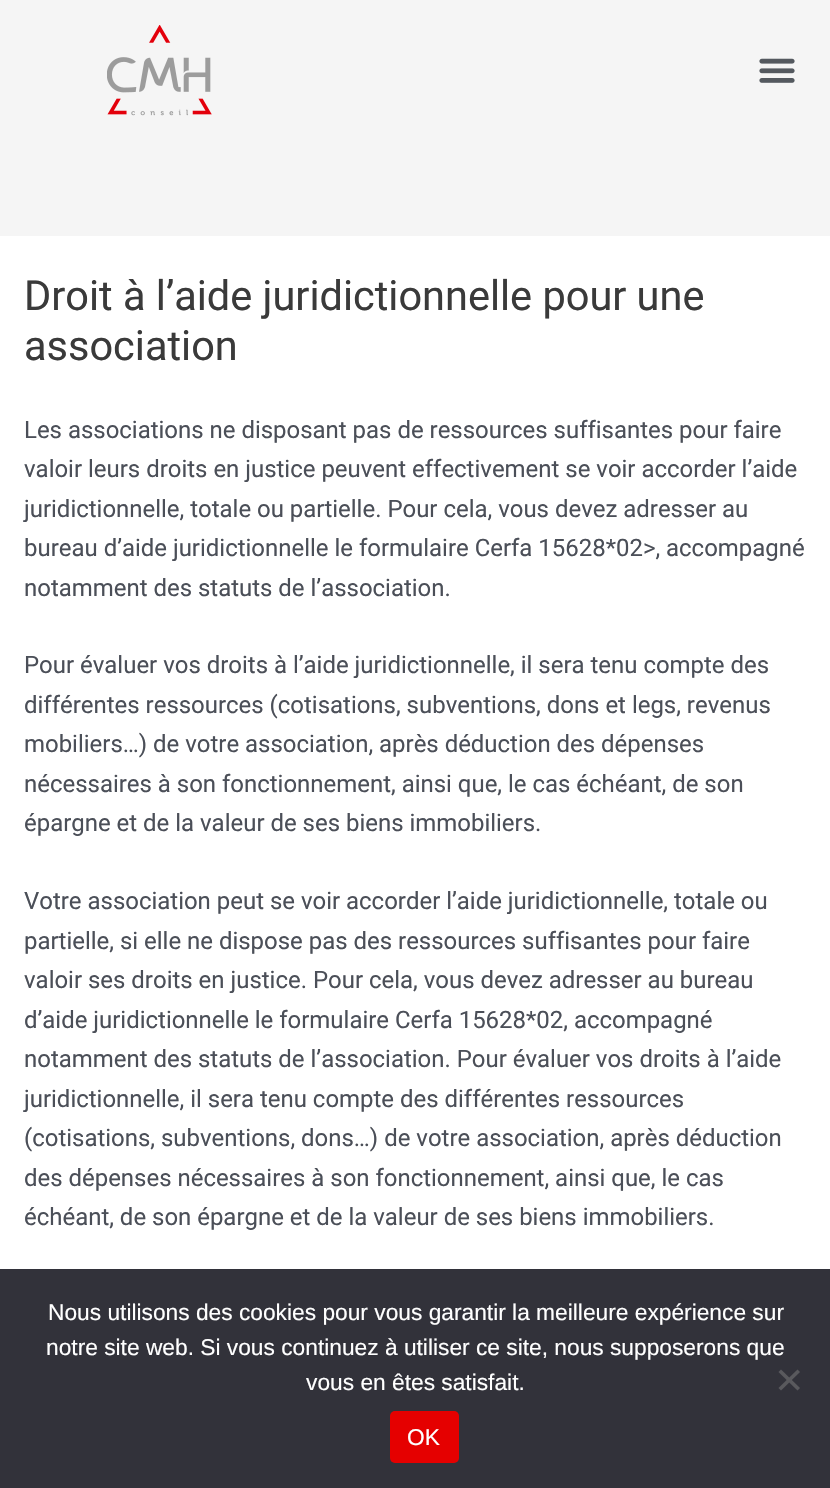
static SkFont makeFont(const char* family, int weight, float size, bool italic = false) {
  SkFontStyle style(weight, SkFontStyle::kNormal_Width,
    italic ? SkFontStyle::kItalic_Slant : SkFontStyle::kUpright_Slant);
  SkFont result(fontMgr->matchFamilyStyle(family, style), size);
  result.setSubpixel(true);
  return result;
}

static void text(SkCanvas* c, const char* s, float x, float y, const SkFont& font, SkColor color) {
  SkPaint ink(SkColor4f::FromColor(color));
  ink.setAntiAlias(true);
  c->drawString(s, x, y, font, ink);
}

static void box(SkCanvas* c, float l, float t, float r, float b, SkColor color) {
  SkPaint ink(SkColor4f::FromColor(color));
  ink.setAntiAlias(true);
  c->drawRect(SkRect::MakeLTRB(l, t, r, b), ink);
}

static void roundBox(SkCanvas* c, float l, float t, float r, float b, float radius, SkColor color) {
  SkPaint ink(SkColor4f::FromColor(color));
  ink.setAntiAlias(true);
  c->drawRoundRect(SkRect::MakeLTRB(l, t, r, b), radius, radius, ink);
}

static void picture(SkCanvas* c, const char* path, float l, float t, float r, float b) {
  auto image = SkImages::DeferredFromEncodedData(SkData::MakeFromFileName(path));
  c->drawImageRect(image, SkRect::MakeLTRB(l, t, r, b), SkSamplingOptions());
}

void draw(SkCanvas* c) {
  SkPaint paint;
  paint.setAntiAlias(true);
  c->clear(0xfff5f5f5);
  picture(c, "img_01.png", 107, 25, 212, 116);
  picture(c, "img_02.png", 759, 58, 795, 83);
  box(c, 0, 236, 830, 1269, 0xffffffff);
  SkFont face1 = makeFont("Roboto", 400, 41.5f);
  text(c, "Droit à l’aide juridictionnelle pour une", 24, 310, face1, 0xff3a3a3a);
  text(c, "association", 24, 360, face1, 0xff3a3a3a);
  SkFont face2 = makeFont("Roboto", 400, 23.95f);
  text(c, "Les associations ne disposant pas de ressources suffisantes pour faire", 24, 438, face2, 0xff4b4f58);
  text(c, "valoir leurs droits en justice peuvent effectivement se voir accorder l’aide", 24, 477, face2, 0xff4b4f58);
  text(c, "juridictionnelle, totale ou partielle. Pour cela, vous devez adresser au", 24, 517, face2, 0xff4b4f58);
  text(c, "bureau d’aide juridictionnelle le formulaire Cerfa 15628*02>, accompagné", 24, 556, face2, 0xff4b4f58);
  text(c, "notamment des statuts de l’association.", 24, 596, face2, 0xff4b4f58);
  text(c, "Pour évaluer vos droits à l’aide juridictionnelle, il sera tenu compte des", 24, 673, face2, 0xff4b4f58);
  text(c, "différentes ressources (cotisations, subventions, dons et legs, revenus", 24, 713, face2, 0xff4b4f58);
  text(c, "mobiliers…) de votre association, après déduction des dépenses", 24, 752, face2, 0xff4b4f58);
  text(c, "nécessaires à son fonctionnement, ainsi que, le cas échéant, de son", 24, 792, face2, 0xff4b4f58);
  text(c, "épargne et de la valeur de ses biens immobiliers.", 24, 831, face2, 0xff4b4f58);
  text(c, "Votre association peut se voir accorder l’aide juridictionnelle, totale ou", 24, 909, face2, 0xff4b4f58);
  text(c, "partielle, si elle ne dispose pas des ressources suffisantes pour faire", 24, 949, face2, 0xff4b4f58);
  text(c, "valoir ses droits en justice. Pour cela, vous devez adresser au bureau", 24, 988, face2, 0xff4b4f58);
  text(c, "d’aide juridictionnelle le formulaire Cerfa 15628*02, accompagné", 24, 1028, face2, 0xff4b4f58);
  text(c, "notamment des statuts de l’association. Pour évaluer vos droits à l’aide", 24, 1067, face2, 0xff4b4f58);
  text(c, "juridictionnelle, il sera tenu compte des différentes ressources", 24, 1107, face2, 0xff4b4f58);
  text(c, "(cotisations, subventions, dons…) de votre association, après déduction", 24, 1146, face2, 0xff4b4f58);
  text(c, "des dépenses nécessaires à son fonctionnement, ainsi que, le cas", 24, 1186, face2, 0xff4b4f58);
  text(c, "échéant, de son épargne et de la valeur de ses biens immobiliers.", 24, 1225, face2, 0xff4b4f58);
  box(c, 0, 1269, 830, 1488, 0xff32323a);
  SkFont face3 = makeFont("Liberation Sans", 400, 22.75f);
  text(c, "Nous utilisons des cookies pour vous garantir la meilleure expérience sur", 48, 1320, face3, 0xffffffff);
  text(c, "notre site web. Si vous continuez à utiliser ce site, nous supposerons que", 46, 1355, face3, 0xffffffff);
  text(c, "vous en êtes satisfait.", 306, 1390, face3, 0xffffffff);
  paint.setColor(0xff59595d);
  c->drawPath(SkPathBuilder().moveTo(797.5f, 1369.5f).lineTo(800, 1372).lineTo(781, 1390.5f).lineTo(778.5f, 1388).close().detach(), paint);
  c->drawPath(SkPathBuilder().moveTo(778.5f, 1372).lineTo(781, 1369.5f).lineTo(800, 1388).lineTo(797.5f, 1390.5f).close().detach(), paint);
  roundBox(c, 390, 1411, 459, 1463, 5, 0xffe50000);
  text(c, "OK", 407, 1445, face3, 0xffffffff);
}
